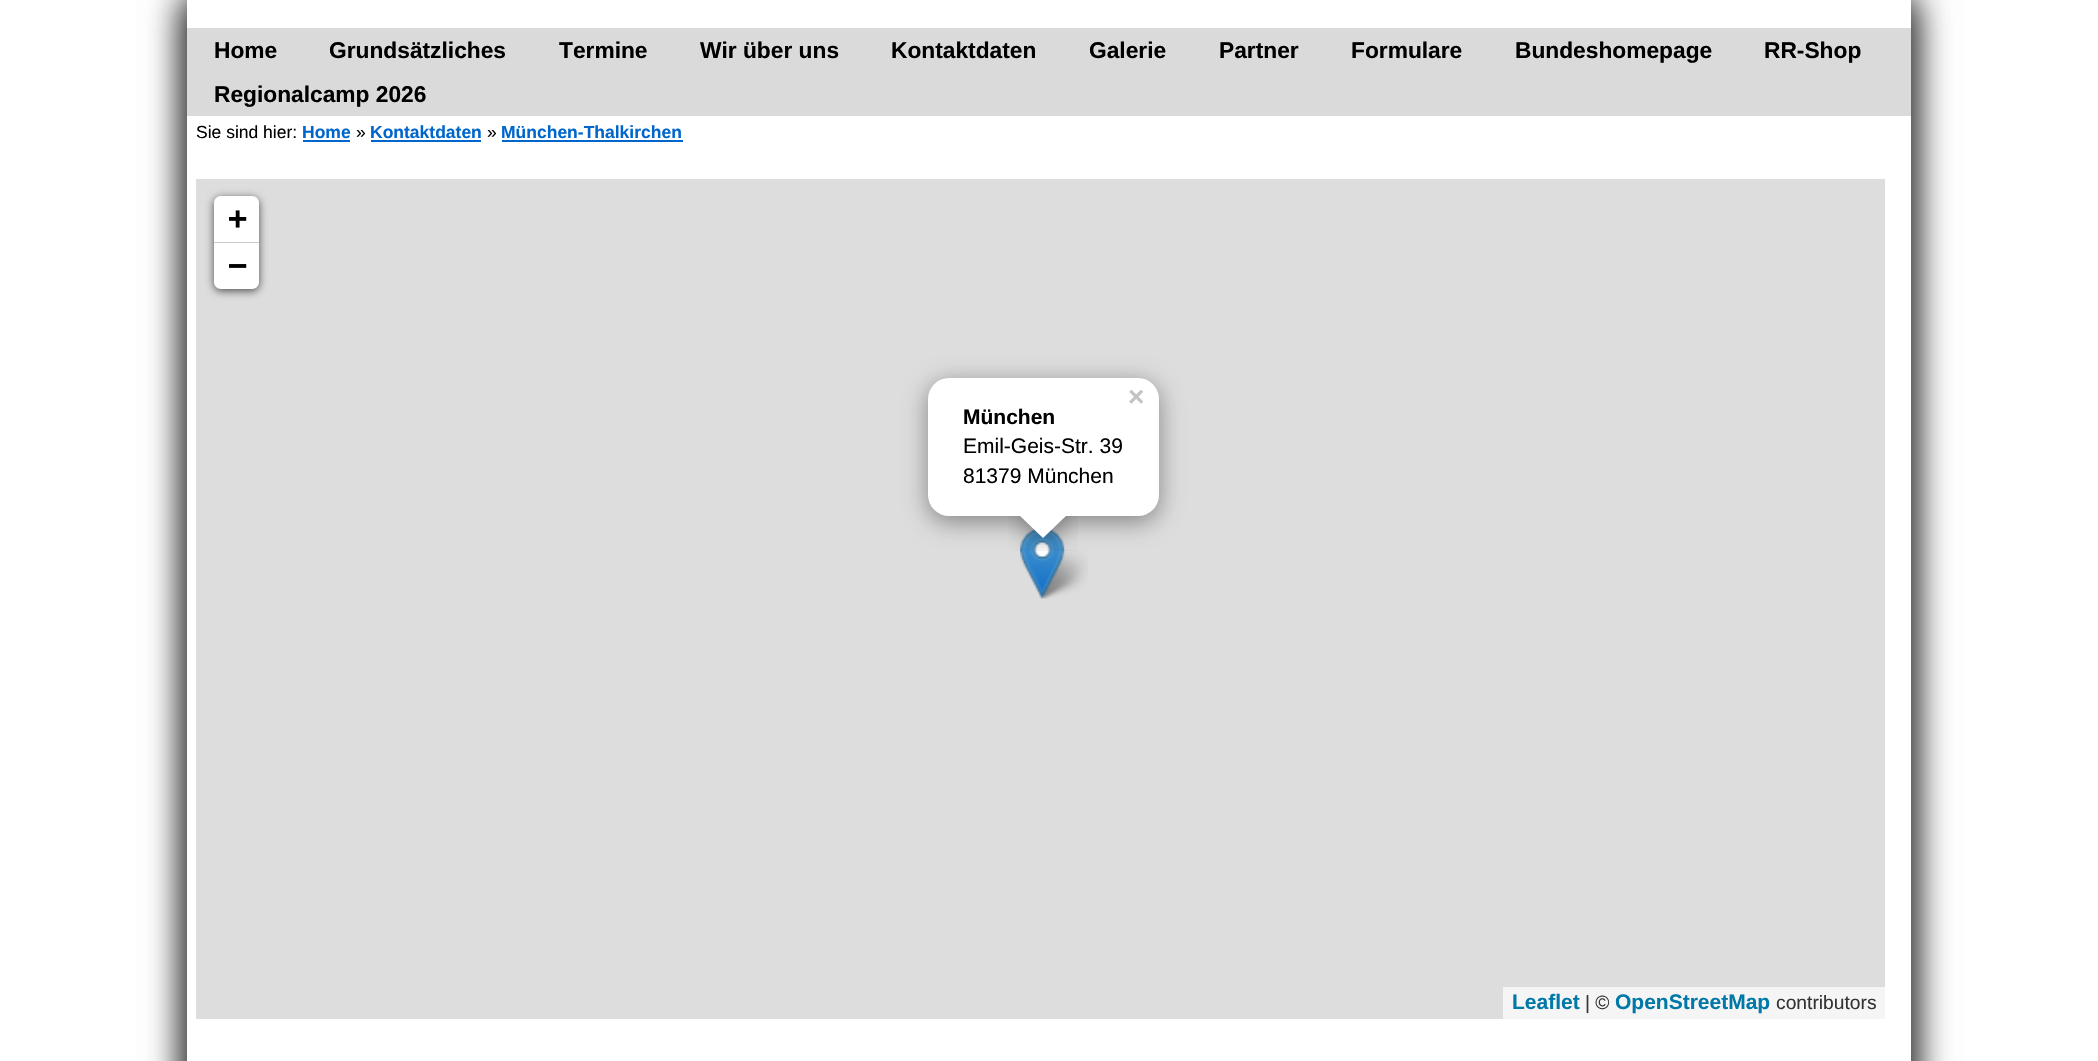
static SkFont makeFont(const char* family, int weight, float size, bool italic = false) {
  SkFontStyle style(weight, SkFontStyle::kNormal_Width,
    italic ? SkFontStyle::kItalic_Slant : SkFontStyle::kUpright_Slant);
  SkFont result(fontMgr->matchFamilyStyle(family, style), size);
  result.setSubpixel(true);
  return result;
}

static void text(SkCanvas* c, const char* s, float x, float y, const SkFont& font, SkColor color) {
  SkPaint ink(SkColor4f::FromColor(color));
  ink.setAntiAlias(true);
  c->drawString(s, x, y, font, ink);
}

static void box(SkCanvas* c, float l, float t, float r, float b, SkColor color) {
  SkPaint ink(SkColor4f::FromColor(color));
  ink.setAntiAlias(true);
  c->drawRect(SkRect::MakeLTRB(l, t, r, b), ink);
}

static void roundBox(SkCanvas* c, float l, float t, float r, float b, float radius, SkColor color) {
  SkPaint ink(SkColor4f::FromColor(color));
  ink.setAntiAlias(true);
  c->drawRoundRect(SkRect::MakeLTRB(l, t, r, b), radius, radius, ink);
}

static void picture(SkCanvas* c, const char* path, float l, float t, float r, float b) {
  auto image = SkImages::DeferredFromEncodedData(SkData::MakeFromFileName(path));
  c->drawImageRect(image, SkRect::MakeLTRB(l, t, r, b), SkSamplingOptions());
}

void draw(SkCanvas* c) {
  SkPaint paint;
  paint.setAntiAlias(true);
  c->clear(0xffffffff);
  c->save();
  c->clipPath(SkPathBuilder(SkPathFillType::kEvenOdd).moveTo(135, 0).lineTo(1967, 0).lineTo(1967, 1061).lineTo(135, 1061).close().moveTo(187, 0).lineTo(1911, 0).lineTo(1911, 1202).lineTo(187, 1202).close().detach(), true);
  paint.setColor(0xff333333);
  paint.setMaskFilter(SkMaskFilter::MakeBlur(kNormal_SkBlurStyle, 17.5f));
  c->drawRect(SkRect::MakeLTRB(189, 2, 1913, 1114), paint);
  paint.setMaskFilter(nullptr);
  c->restore();
  c->save();
  c->clipPath(SkPathBuilder(SkPathFillType::kEvenOdd).moveTo(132, 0).lineTo(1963, 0).lineTo(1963, 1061).lineTo(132, 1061).close().moveTo(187, 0).lineTo(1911, 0).lineTo(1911, 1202).lineTo(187, 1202).close().detach(), true);
  paint.setMaskFilter(SkMaskFilter::MakeBlur(kNormal_SkBlurStyle, 17.5f));
  c->drawRect(SkRect::MakeLTRB(186, -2, 1909, 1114), paint);
  paint.setMaskFilter(nullptr);
  c->restore();
  box(c, 187, 28, 1911, 116, 0xffdadada);
  SkFont face1 = makeFont("Liberation Sans", 700, 22.75f);
  text(c, "Home", 214, 58, face1, 0xff000000);
  text(c, "Grundsätzliches", 329, 58, face1, 0xff000000);
  text(c, "Termine", 559, 58, face1, 0xff000000);
  text(c, "Wir über uns", 700, 58, face1, 0xff000000);
  text(c, "Kontaktdaten", 891, 58, face1, 0xff000000);
  text(c, "Galerie", 1089, 58, face1, 0xff000000);
  text(c, "Partner", 1219, 58, face1, 0xff000000);
  text(c, "Formulare", 1351, 58, face1, 0xff000000);
  text(c, "Bundeshomepage", 1515, 58, face1, 0xff000000);
  text(c, "RR-Shop", 1764, 58, face1, 0xff000000);
  text(c, "Regionalcamp 2026", 214, 102, face1, 0xff000000);
  SkFont face2 = makeFont("Liberation Sans", 400, 17.5f);
  text(c, "Sie sind hier:", 196, 138, face2, 0xff000000);
  SkFont face3 = makeFont("Liberation Sans", 700, 17.5f);
  text(c, "Home", 302, 138, face3, 0xff0066cc);
  box(c, 303, 140, 350, 142, 0xff0066cc);
  text(c, "»", 356, 138, face2, 0xff000000);
  text(c, "Kontaktdaten", 370, 138, face3, 0xff0066cc);
  box(c, 371, 140, 481, 142, 0xff0066cc);
  text(c, "»", 487, 138, face2, 0xff000000);
  text(c, "München-Thalkirchen", 501, 138, face3, 0xff0066cc);
  box(c, 502, 140, 683, 142, 0xff0066cc);
  box(c, 196, 179, 1885, 1019, 0xffdddddd);
  paint.setColor(0xa6000000);
  paint.setMaskFilter(SkMaskFilter::MakeBlur(kNormal_SkBlurStyle, 4.5f));
  c->drawRoundRect(SkRect::MakeLTRB(214, 198, 259, 291), 7, 7, paint);
  paint.setMaskFilter(nullptr);
  paint.setColor(0xffffffff);
  c->drawPath(SkPathBuilder().moveTo(221, 196).lineTo(252, 196).cubicTo(256, 196, 259, 199, 259, 203).lineTo(259, 243).lineTo(214, 243).lineTo(214, 203).cubicTo(214, 199, 217, 196, 221, 196).close().detach(), paint);
  box(c, 214, 242, 259, 243, 0xffcccccc);
  SkFont face4 = makeFont("DejaVu Sans Mono", 700, 32);
  text(c, "+", 228, 229, face4, 0xff000000);
  c->drawPath(SkPathBuilder().moveTo(214, 243).lineTo(259, 243).lineTo(259, 282).cubicTo(259, 286, 256, 289, 252, 289).lineTo(221, 289).cubicTo(217, 289, 214, 286, 214, 282).close().detach(), paint);
  text(c, "−", 228, 276, face4, 0xff000000);
  box(c, 1503, 987, 1885, 1019, 0xfff5f5f5);
  SkFont face5 = makeFont("Liberation Sans", 700, 21);
  text(c, "Leaflet", 1512, 1009, face5, 0xff0078a8);
  SkFont face6 = makeFont("Liberation Sans", 400, 19.25f);
  text(c, "| ©", 1585, 1009, face6, 0xff333333);
  text(c, "OpenStreetMap", 1615, 1009, face5, 0xff0078a8);
  text(c, "contributors", 1776, 1009, face6, 0xff333333);
  picture(c, "img_02.png", 1036, 549, 1088, 599);
  picture(c, "img_01.png", 1020, 528, 1065, 599);
  paint.setColor(0x66000000);
  paint.setMaskFilter(SkMaskFilter::MakeBlur(kNormal_SkBlurStyle, 12));
  c->drawRoundRect(SkRect::MakeLTRB(928, 383, 1159, 522), 21, 21, paint);
  paint.setMaskFilter(nullptr);
  roundBox(c, 928, 378, 1159, 516, 21, 0xffffffff);
  SkFont face7 = makeFont("Liberation Sans", 700, 28);
  text(c, "×", 1128, 406, face7, 0xffc3c3c3);
  text(c, "München", 963, 424, face5, 0xff000000);
  SkFont face8 = makeFont("Liberation Sans", 400, 21);
  text(c, "Emil-Geis-Str. 39", 963, 453, face8, 0xff000000);
  text(c, "81379 München", 963, 483, face8, 0xff000000);
  c->save();
  c->clipRect(SkRect::MakeLTRB(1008, 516, 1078, 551));
  paint.setMaskFilter(SkMaskFilter::MakeBlur(kNormal_SkBlurStyle, 12.5f));
  c->drawRect(SkRect::MakeLTRB(1027, 504, 1061, 537), paint);
  paint.setMaskFilter(nullptr);
  c->restore();
  c->save();
  c->clipRect(SkRect::MakeLTRB(1008, 516, 1078, 551));
  paint.setColor(0xffffffff);
  c->drawPath(SkPathBuilder().moveTo(1043, 491).lineTo(1067, 515).lineTo(1043, 538).lineTo(1019, 515).close().detach(), paint);
  c->restore();
}
